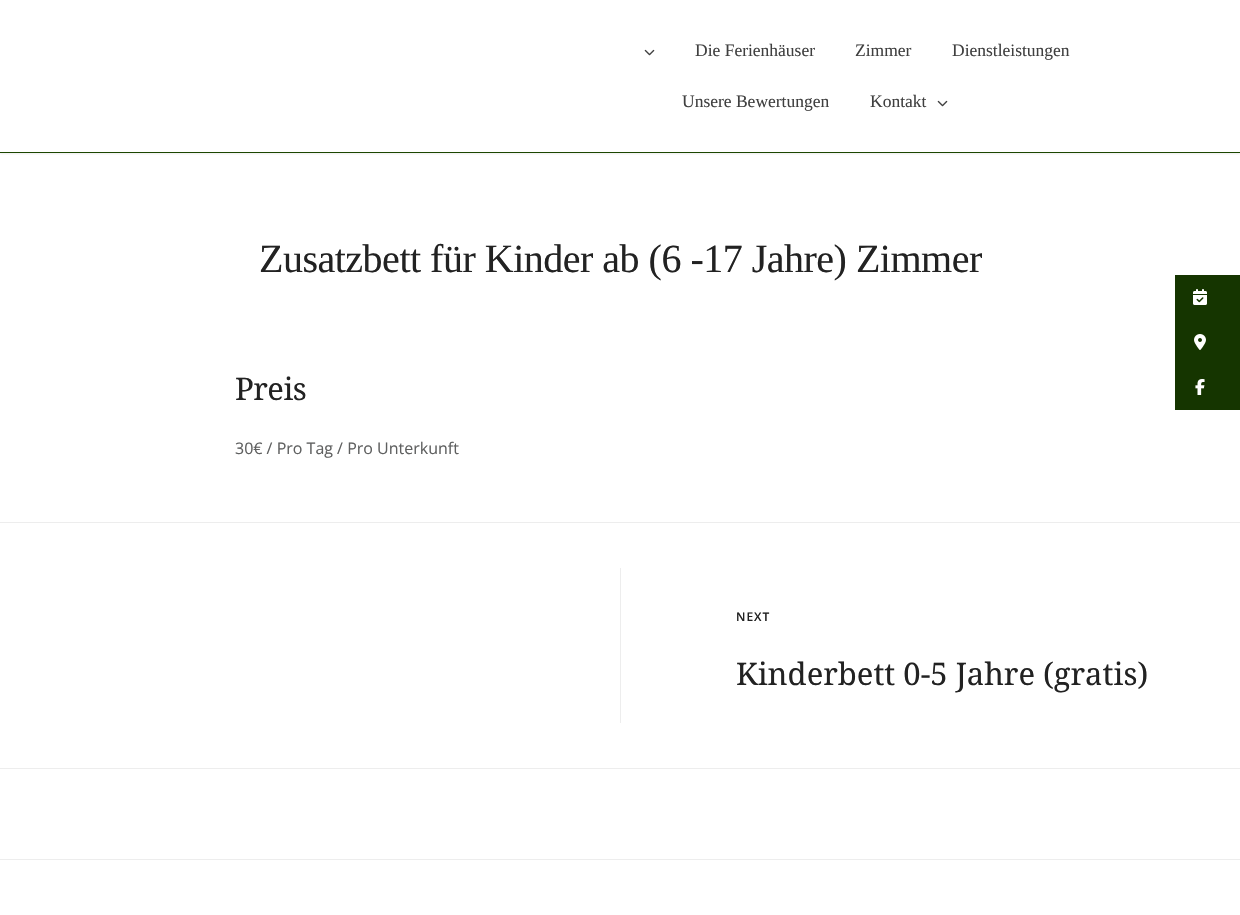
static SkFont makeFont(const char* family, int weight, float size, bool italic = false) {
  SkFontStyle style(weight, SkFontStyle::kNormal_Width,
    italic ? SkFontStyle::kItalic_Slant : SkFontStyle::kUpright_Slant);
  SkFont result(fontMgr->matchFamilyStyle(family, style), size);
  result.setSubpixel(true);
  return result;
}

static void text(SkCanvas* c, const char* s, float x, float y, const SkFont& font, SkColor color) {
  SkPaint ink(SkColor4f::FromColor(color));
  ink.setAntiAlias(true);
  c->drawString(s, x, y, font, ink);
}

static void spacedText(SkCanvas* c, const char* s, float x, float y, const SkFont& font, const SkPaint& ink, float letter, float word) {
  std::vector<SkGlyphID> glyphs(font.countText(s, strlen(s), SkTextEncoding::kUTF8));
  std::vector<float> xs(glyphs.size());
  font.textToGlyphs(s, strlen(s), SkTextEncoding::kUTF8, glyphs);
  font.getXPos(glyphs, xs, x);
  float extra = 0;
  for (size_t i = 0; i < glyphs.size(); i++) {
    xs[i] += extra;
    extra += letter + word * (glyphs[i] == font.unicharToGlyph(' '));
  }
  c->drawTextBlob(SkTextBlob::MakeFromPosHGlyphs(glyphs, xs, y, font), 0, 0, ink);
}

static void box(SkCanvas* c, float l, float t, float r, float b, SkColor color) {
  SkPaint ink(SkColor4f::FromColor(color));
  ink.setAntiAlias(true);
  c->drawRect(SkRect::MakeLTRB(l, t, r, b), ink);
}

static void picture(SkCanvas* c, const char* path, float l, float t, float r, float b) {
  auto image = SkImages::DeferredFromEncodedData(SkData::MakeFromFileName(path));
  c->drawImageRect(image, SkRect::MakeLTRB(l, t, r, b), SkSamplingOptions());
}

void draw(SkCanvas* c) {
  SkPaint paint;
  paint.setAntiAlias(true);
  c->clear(0xffffffff);
  c->save();
  c->clipRect(SkRect::MakeLTRB(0, 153, 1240, 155));
  paint.setColor(0x1a505050);
  paint.setMaskFilter(SkMaskFilter::MakeBlur(kNormal_SkBlurStyle, 1));
  c->drawRect(SkRect::MakeLTRB(0, 1, 1240, 154), paint);
  paint.setMaskFilter(nullptr);
  c->restore();
  box(c, 0, 152, 1240, 153, 0xff1c4700);
  picture(c, "img_01.png", 644, 49, 655, 56);
  SkFont face1 = makeFont("Liberation Serif", 400, 17.5f);
  text(c, "Die Ferienhäuser", 695, 56, face1, 0xff404040);
  text(c, "Zimmer", 855, 56, face1, 0xff404040);
  text(c, "Dienstleistungen", 952, 56, face1, 0xff404040);
  text(c, "Unsere Bewertungen", 682, 107, face1, 0xff404040);
  text(c, "Kontakt", 870, 107, face1, 0xff404040);
  picture(c, "img_01.png", 937, 100, 948, 107);
  SkFont face2 = makeFont("Liberation Serif", 400, 40);
  paint.setColor(0xff222222);
  spacedText(c, "Zusatzbett für Kinder ab (6 -17 Jahre) Zimmer", 259, 272, face2, paint, -0.5f, 0);
  SkFont face3 = makeFont("Noto Serif", 400, 31);
  spacedText(c, "Preis", 235, 400, face3, paint, -0.5f, 0);
  SkFont face4 = makeFont("Open Sans", 400, 16);
  text(c, "30€ / Pro Tag / Pro Unterkunft", 235, 454, face4, 0xff5f6060);
  box(c, 0, 522, 1240, 523, 0xffededed);
  box(c, 0, 768, 1240, 769, 0xffededed);
  box(c, 620, 568, 621, 723, 0xffededed);
  SkFont face5 = makeFont("Open Sans", 600, 12);
  spacedText(c, "NEXT", 736, 621, face5, paint, 1, 0);
  text(c, "Kinderbett 0-5 Jahre (gratis)", 736, 685, face3, 0xff222222);
  box(c, 0, 859, 1240, 860, 0xffededed);
  box(c, 1175, 275, 1240, 410, 0xff153500);
  picture(c, "img_02.png", 1193, 289, 1207, 305);
  picture(c, "img_03.png", 1194, 334, 1206, 350);
  picture(c, "img_04.png", 1195, 379, 1205, 395);
}
